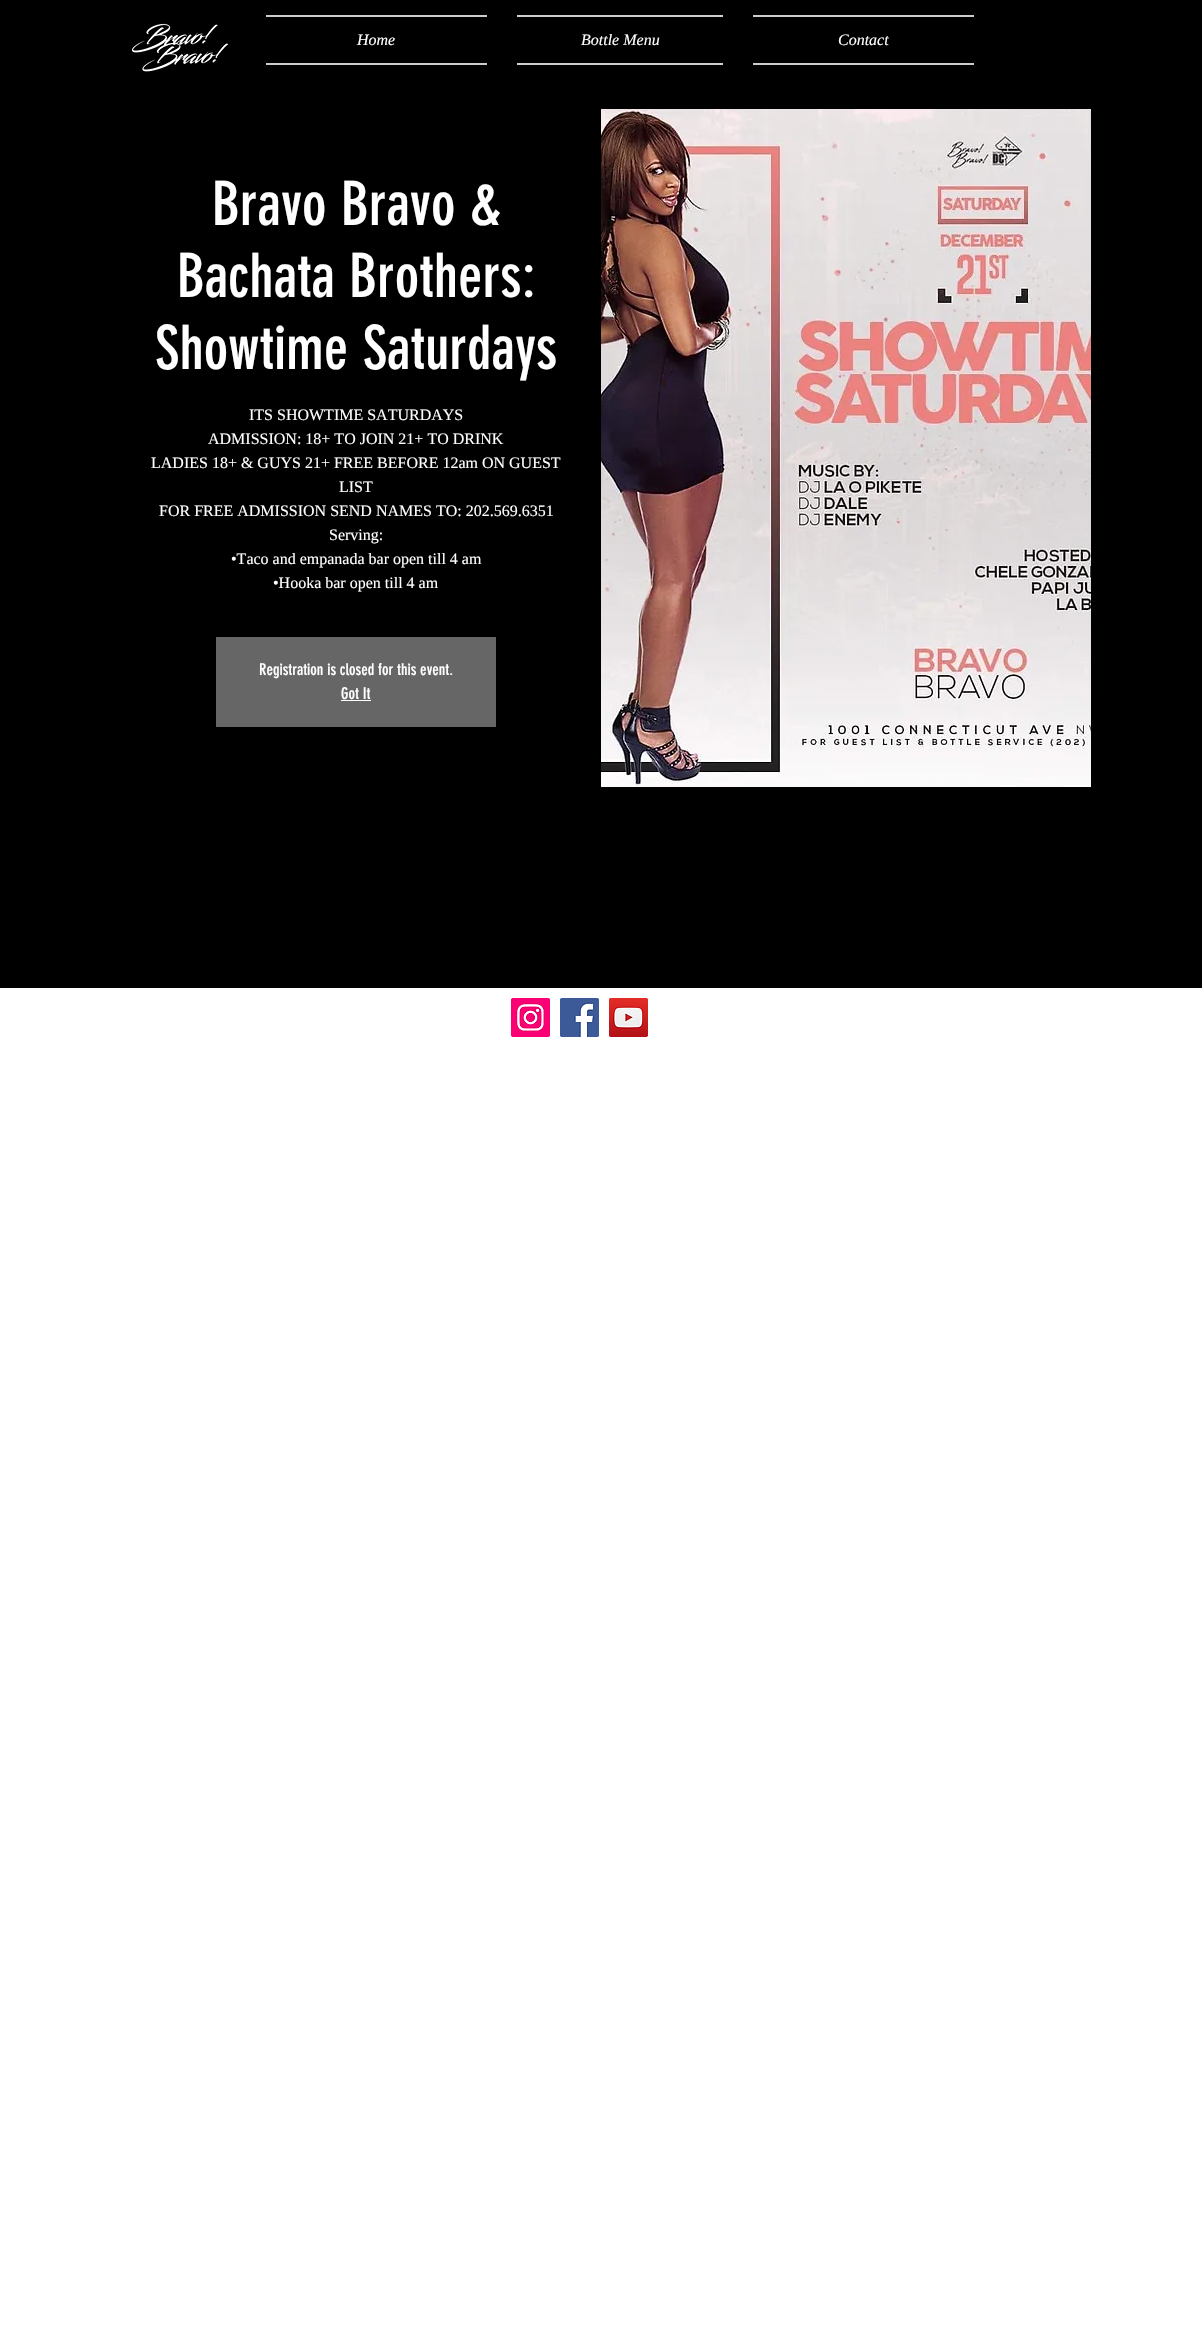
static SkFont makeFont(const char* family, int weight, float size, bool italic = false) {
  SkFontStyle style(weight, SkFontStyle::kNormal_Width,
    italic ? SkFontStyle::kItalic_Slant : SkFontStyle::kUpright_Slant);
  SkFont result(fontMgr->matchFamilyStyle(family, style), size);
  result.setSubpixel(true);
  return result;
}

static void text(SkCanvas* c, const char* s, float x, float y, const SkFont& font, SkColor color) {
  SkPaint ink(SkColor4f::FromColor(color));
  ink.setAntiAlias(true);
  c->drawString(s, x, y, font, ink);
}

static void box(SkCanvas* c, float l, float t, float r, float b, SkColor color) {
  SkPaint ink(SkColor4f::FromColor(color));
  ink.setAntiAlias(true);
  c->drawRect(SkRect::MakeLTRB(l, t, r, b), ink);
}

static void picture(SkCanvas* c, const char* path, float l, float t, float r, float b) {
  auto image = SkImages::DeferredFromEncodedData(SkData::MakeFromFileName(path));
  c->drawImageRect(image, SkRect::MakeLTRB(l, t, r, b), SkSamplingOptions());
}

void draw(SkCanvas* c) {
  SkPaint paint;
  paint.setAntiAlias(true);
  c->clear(0xffffffff);
  box(c, 0, 0, 1202, 988, 0xff000000);
  picture(c, "img_01.png", 132, 23, 229, 72);
  box(c, 266, 15, 487, 17, 0xffcccccc);
  box(c, 266, 63, 487, 65, 0xffcccccc);
  SkFont face1 = makeFont("Liberation Serif", 400, 16, true);
  text(c, "Home", 357, 45, face1, 0xffffffff);
  box(c, 517, 15, 723, 17, 0xffcccccc);
  box(c, 517, 63, 723, 65, 0xffcccccc);
  text(c, "Bottle Menu", 581, 45, face1, 0xffffffff);
  box(c, 753, 15, 974, 17, 0xffcccccc);
  box(c, 753, 63, 974, 65, 0xffcccccc);
  text(c, "Contact", 838, 45, face1, 0xffffffff);
  SkFont face2 = makeFont("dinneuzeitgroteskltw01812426", 400, 60);
  text(c, "Bravo Bravo &", 212, 225, face2, 0xffffffff);
  text(c, "Bachata Brothers:", 177, 297, face2, 0xffffffff);
  text(c, "Showtime Saturdays", 155, 369, face2, 0xffffffff);
  SkFont face3 = makeFont("Liberation Serif", 400, 16);
  text(c, "ITS SHOWTIME SATURDAYS", 249, 420, face3, 0xffffffff);
  text(c, "ADMISSION: 18+ TO JOIN 21+ TO DRINK", 208, 444, face3, 0xffffffff);
  text(c, "LADIES 18+ & GUYS 21+ FREE BEFORE 12am ON GUEST", 151, 468, face3, 0xffffffff);
  text(c, "LIST", 339, 492, face3, 0xffffffff);
  text(c, "FOR FREE ADMISSION SEND NAMES TO: 202.569.6351", 159, 516, face3, 0xffffffff);
  text(c, "Serving:", 329, 540, face3, 0xffffffff);
  text(c, "•Taco and empanada bar open till 4 am", 231, 564, face3, 0xffffffff);
  text(c, "•Hooka bar open till 4 am", 273, 588, face3, 0xffffffff);
  box(c, 216, 637, 496, 727, 0xff666666);
  SkFont face4 = makeFont("dinneuzeitgroteskltw01812426", 400, 16);
  text(c, "Registration is closed for this event.", 259, 675, face4, 0xffffffff);
  text(c, "Got It", 341, 699, face4, 0xffffffff);
  box(c, 341, 700, 371, 701, 0xffffffff);
  picture(c, "img_02.png", 601, 109, 1091, 787);
  picture(c, "img_03.png", 511, 998, 550, 1037);
  picture(c, "img_04.png", 560, 998, 599, 1037);
  picture(c, "img_05.png", 609, 998, 648, 1037);
}
